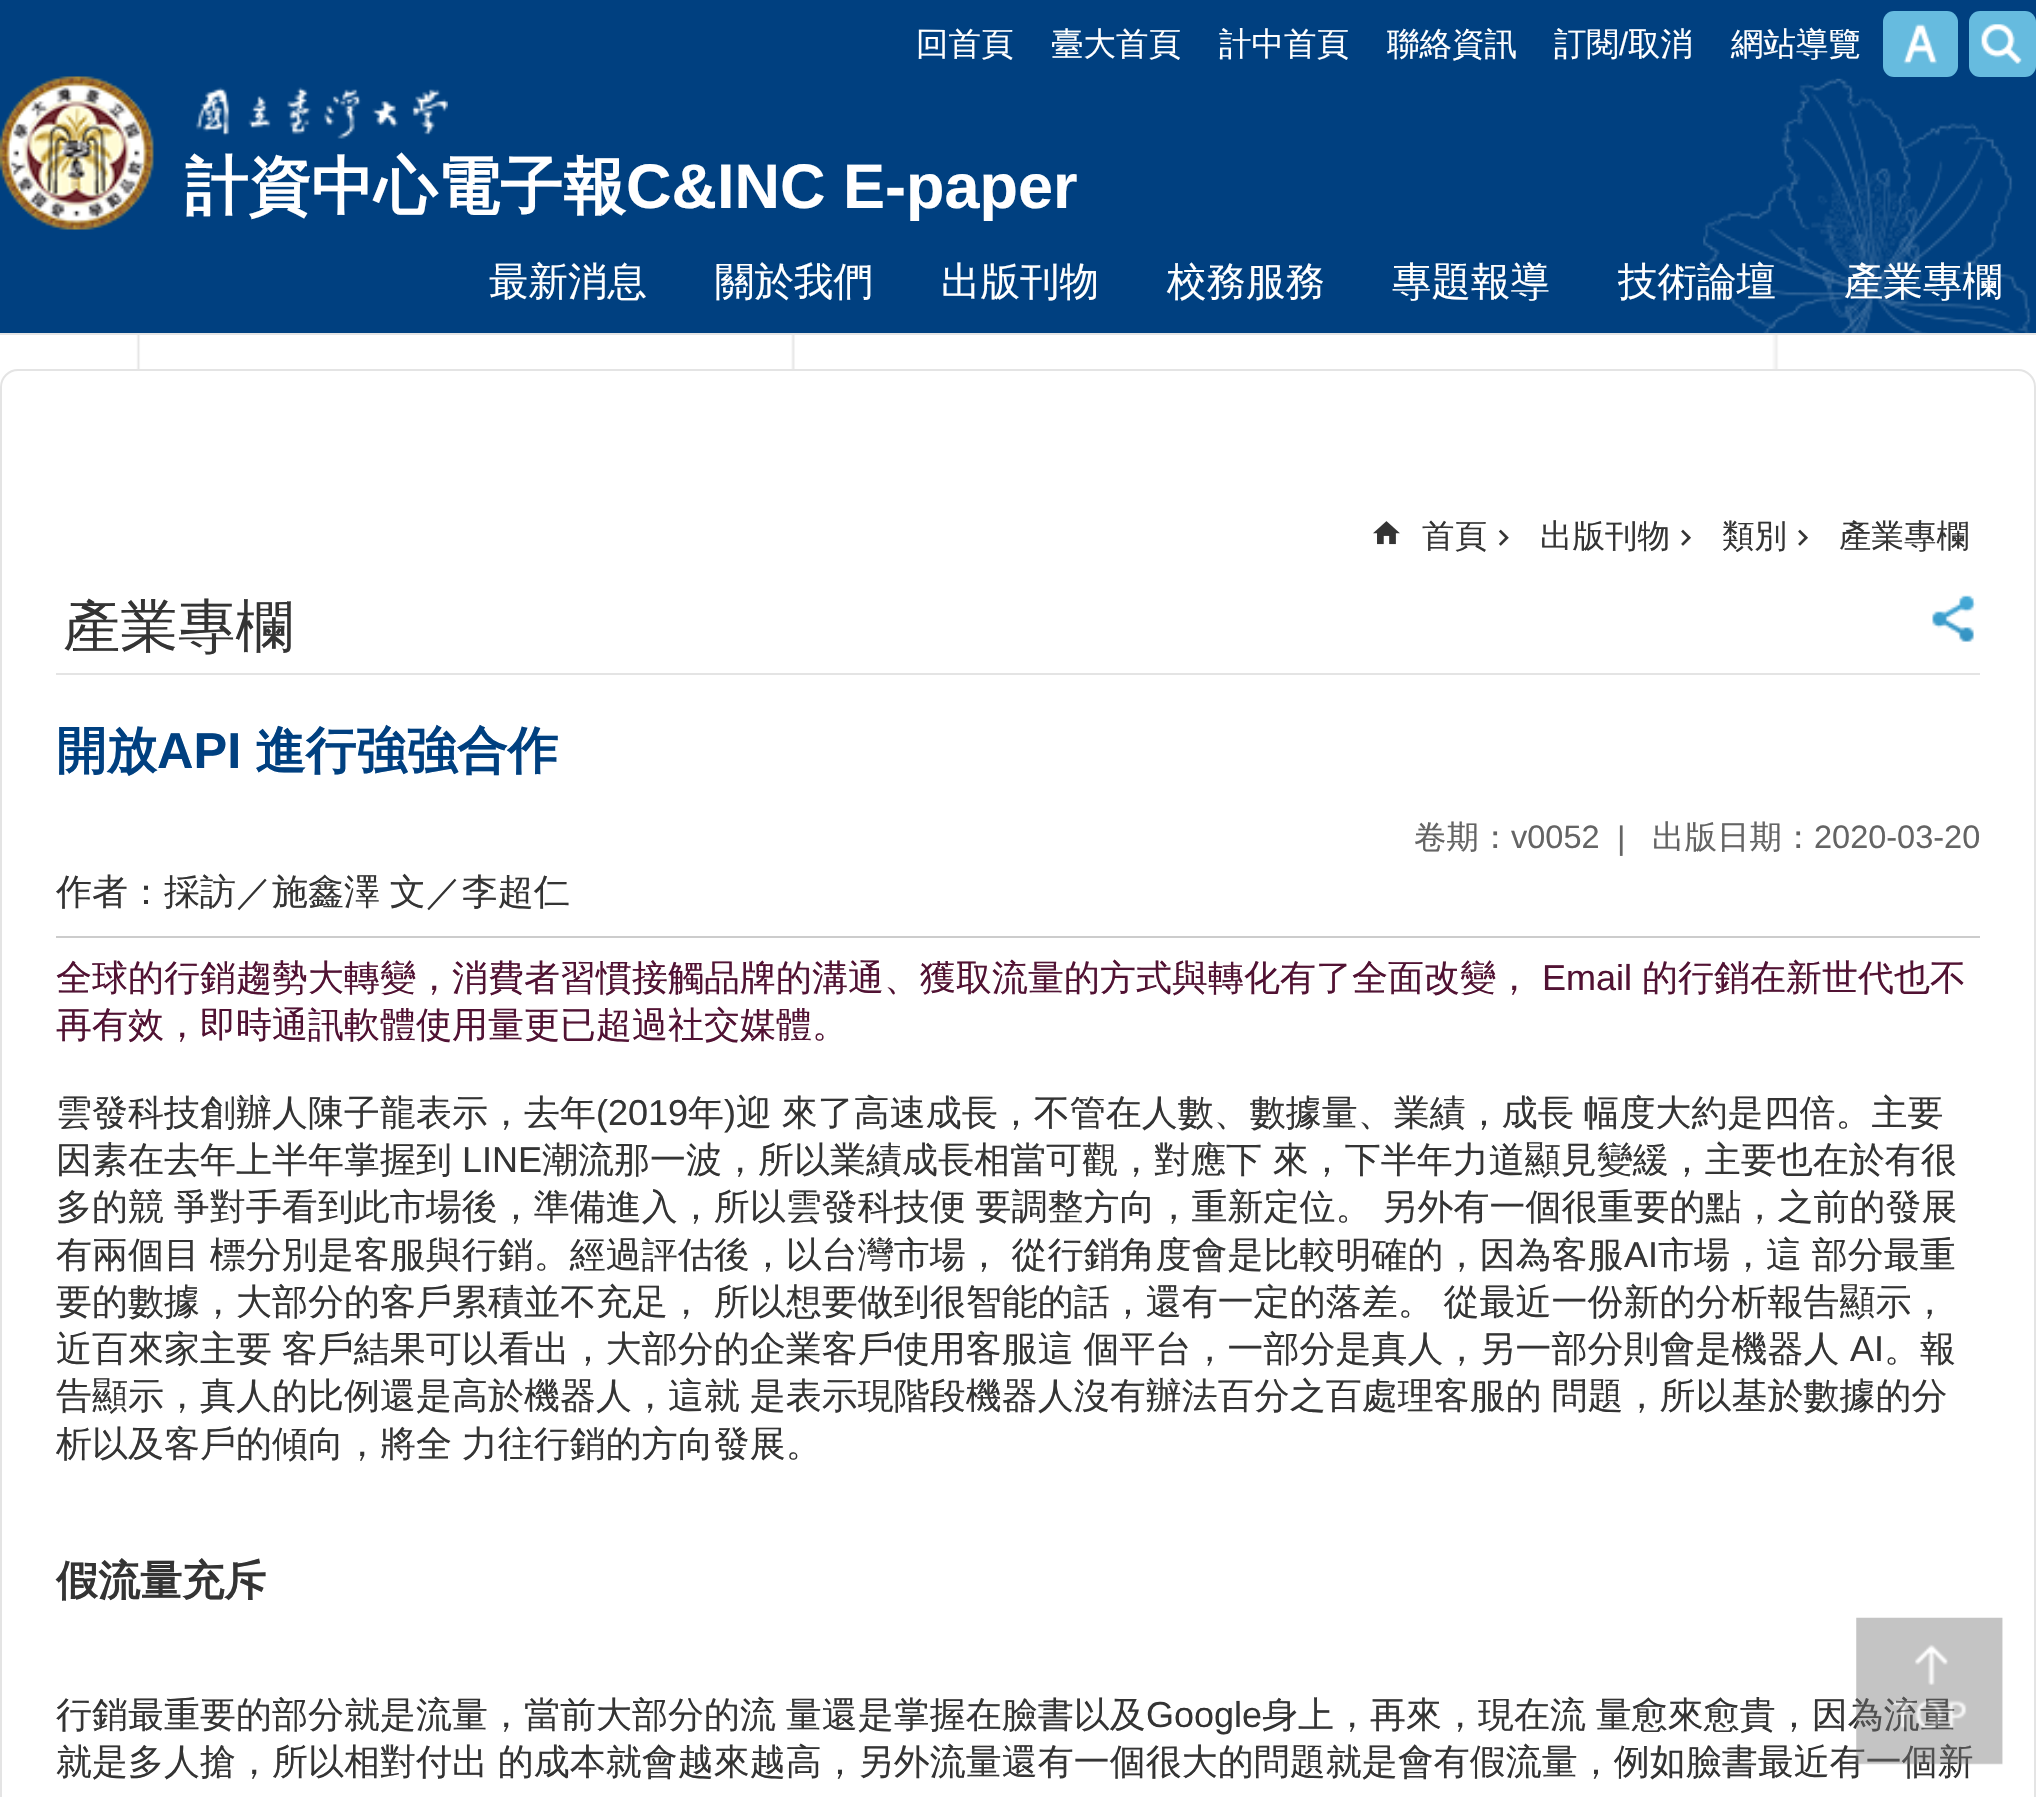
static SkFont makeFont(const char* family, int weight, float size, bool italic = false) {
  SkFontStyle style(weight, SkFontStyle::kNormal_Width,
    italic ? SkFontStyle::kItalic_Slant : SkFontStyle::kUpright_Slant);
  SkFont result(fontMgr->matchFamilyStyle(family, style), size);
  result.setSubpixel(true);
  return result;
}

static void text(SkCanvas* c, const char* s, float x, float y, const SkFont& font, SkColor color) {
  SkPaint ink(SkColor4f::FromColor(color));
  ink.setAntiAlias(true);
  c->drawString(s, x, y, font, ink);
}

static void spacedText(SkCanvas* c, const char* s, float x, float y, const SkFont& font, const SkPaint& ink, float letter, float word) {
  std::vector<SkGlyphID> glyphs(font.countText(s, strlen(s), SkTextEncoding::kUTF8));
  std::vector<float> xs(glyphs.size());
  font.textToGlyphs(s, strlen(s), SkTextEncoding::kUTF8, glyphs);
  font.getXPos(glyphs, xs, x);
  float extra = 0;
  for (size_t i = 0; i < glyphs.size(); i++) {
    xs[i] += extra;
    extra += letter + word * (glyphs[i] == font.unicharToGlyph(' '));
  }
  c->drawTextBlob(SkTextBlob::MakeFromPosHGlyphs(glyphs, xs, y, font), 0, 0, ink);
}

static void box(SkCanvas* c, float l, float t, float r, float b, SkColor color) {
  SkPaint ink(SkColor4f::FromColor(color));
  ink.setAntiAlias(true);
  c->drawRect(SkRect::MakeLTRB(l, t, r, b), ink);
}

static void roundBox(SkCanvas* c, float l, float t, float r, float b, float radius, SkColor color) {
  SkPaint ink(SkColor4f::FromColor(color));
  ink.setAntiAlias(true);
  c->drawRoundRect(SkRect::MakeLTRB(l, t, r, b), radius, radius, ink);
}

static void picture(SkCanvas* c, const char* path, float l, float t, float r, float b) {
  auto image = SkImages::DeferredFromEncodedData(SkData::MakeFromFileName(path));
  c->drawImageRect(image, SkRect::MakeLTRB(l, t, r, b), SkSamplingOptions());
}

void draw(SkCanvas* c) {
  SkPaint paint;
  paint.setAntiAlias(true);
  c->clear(0xffffffff);
  picture(c, "img_01.png", 136, 335, 1779, 369);
  box(c, 0, 0, 2036, 333, 0xff004080);
  picture(c, "img_02.png", 1703, 78, 2031, 333);
  box(c, 0, 333, 2036, 335, 0xffe4e4e4);
  SkFont face1 = makeFont("WenQuanYi Zen Hei", 500, 32.5f);
  text(c, "回首頁", 916, 55, face1, 0xffffffff);
  text(c, "臺大首頁", 1051, 55, face1, 0xffffffff);
  text(c, "計中首頁", 1219, 55, face1, 0xffffffff);
  text(c, "聯絡資訊", 1387, 55, face1, 0xffffffff);
  text(c, "訂閱", 1554, 55, face1, 0xffffffff);
  SkFont face2 = makeFont("Liberation Sans", 400, 32.5f);
  text(c, "/", 1619, 55, face2, 0xffffffff);
  text(c, "取消", 1628, 55, face1, 0xffffffff);
  text(c, "網站導覽", 1731, 55, face1, 0xffffffff);
  roundBox(c, 1883, 11, 1958, 77, 11, 0xff66bbdf);
  picture(c, "img_03.png", 1903, 24, 1937, 64);
  roundBox(c, 1969, 11, 2036, 77, 11, 0xff66bbdf);
  picture(c, "img_04.png", 1981, 24, 2022, 64);
  picture(c, "img_05.png", 0, 76, 448, 230);
  SkFont face3 = makeFont("WenQuanYi Zen Hei", 700, 63);
  text(c, "計資中心電子報", 185, 208, face3, 0xffffffff);
  SkFont face4 = makeFont("Liberation Sans", 700, 63);
  text(c, "C&INC E-paper", 626, 208, face4, 0xffffffff);
  SkFont face5 = makeFont("WenQuanYi Zen Hei", 500, 39.5f);
  text(c, "最新消息", 489, 295, face5, 0xffffffff);
  text(c, "關於我們", 715, 295, face5, 0xffffffff);
  text(c, "出版刊物", 941, 295, face5, 0xffffffff);
  text(c, "校務服務", 1167, 295, face5, 0xffffffff);
  text(c, "專題報導", 1392, 295, face5, 0xffffffff);
  text(c, "技術論壇", 1618, 295, face5, 0xffffffff);
  text(c, "產業專欄", 1844, 295, face5, 0xffffffff);
  paint.setStyle(SkPaint::kStroke_Style);
  paint.setStrokeWidth(2);
  paint.setColor(0xffe4e4e4);
  c->drawRoundRect(SkRect::MakeLTRB(1, 370, 2035, 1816), 17, 17, paint);
  picture(c, "img_06.png", 1373, 521, 1400, 545);
  text(c, "首頁", 1422, 547, face1, 0xff343434);
  picture(c, "img_07.png", 1498, 529, 1509, 546);
  text(c, "出版刊物", 1540, 547, face1, 0xff343434);
  picture(c, "img_08.png", 1681, 529, 1691, 546);
  text(c, "類別", 1722, 547, face1, 0xff343434);
  picture(c, "img_08.png", 1798, 529, 1808, 546);
  text(c, "產業專欄", 1839, 547, face1, 0xff343434);
  box(c, 56, 673, 1980, 675, 0xffe4e4e4);
  SkFont face6 = makeFont("WenQuanYi Zen Hei", 500, 57.5f);
  text(c, "產業專欄", 63, 646, face6, 0xff343434);
  picture(c, "img_09.png", 1932, 595, 1976, 642);
  SkFont face7 = makeFont("WenQuanYi Zen Hei", 700, 50.5f);
  text(c, "開放", 56, 768, face7, 0xff004080);
  SkFont face8 = makeFont("Liberation Sans", 700, 50.5f);
  text(c, "API", 157, 768, face8, 0xff004080);
  text(c, "進行強強合作", 255, 768, face7, 0xff004080);
  text(c, "卷期：", 1414, 848, face1, 0xff646464);
  text(c, "v0052", 1511, 848, face2, 0xff646464);
  text(c, "|", 1617, 849, face2, 0xff646464);
  text(c, "出版日期：", 1652, 848, face1, 0xff646464);
  text(c, "2020-03-20", 1814, 848, face2, 0xff646464);
  SkFont face9 = makeFont("WenQuanYi Zen Hei", 500, 36);
  paint.setStyle(SkPaint::kFill_Style);
  paint.setColor(0xff343434);
  spacedText(c, "作者：採訪／施鑫澤 文／李超仁", 56, 904, face9, paint, 0, -1);
  box(c, 56, 936, 1980, 938, 0xffcccccc);
  text(c, "全球的行銷趨勢大轉變，消費者習慣接觸品牌的溝通、獲取流量的方式與轉化有了全面改變，", 56, 990, face9, 0xff511233);
  SkFont face10 = makeFont("Liberation Sans", 400, 36);
  text(c, "Email", 1542, 990, face10, 0xff511233);
  text(c, "的行銷在新世代也不", 1642, 990, face9, 0xff511233);
  text(c, "再有效，即時通訊軟體使用量更已超過社交媒體。", 56, 1037, face9, 0xff511233);
  text(c, "雲發科技創辦人陳子龍表示，去年", 56, 1125, face9, 0xff343434);
  text(c, "(2019", 596, 1125, face10, 0xff343434);
  text(c, "年", 688, 1125, face9, 0xff343434);
  text(c, ")", 724, 1125, face10, 0xff343434);
  spacedText(c, "迎 來了高速成長，不管在人數、數據量、業績，成長 幅度大約是四倍。主要", 736, 1125, face9, paint, 0, -1);
  text(c, "因素在去年上半年掌握到", 56, 1172, face9, 0xff343434);
  text(c, "LINE", 462, 1172, face10, 0xff343434);
  text(c, "潮流那一波，所以業績成長相當可觀，對應下 來，下半年力道顯見變緩，主要也在於有很", 542, 1172, face9, 0xff343434);
  spacedText(c, "多的競 爭對手看到此市場後，準備進入，所以雲發科技便 要調整方向，重新定位。 另外有一個很重要的點，之前的發展", 56, 1219, face9, paint, 0, -1);
  spacedText(c, "有兩個目 標分別是客服與行銷。經過評估後，以台灣市場， 從行銷角度會是比較明確的，因為客服", 56, 1267, face9, paint, 0, -1);
  text(c, "AI", 1624, 1267, face10, 0xff343434);
  spacedText(c, "市場，這 部分最重", 1658, 1267, face9, paint, 0, -1);
  spacedText(c, "要的數據，大部分的客戶累積並不充足， 所以想要做到很智能的話，還有一定的落差。 從最近一份新的分析報告顯示，", 56, 1314, face9, paint, 0, -1);
  spacedText(c, "近百來家主要 客戶結果可以看出，大部分的企業客戶使用客服這 個平台，一部分是真人，另一部分則會是機器人", 56, 1361, face9, paint, 0, -1);
  text(c, "AI", 1850, 1361, face10, 0xff343434);
  text(c, "。報", 1884, 1361, face9, 0xff343434);
  spacedText(c, "告顯示，真人的比例還是高於機器人，這就 是表示現階段機器人沒有辦法百分之百處理客服的 問題，所以基於數據的分", 56, 1408, face9, paint, 0, -1);
  spacedText(c, "析以及客戶的傾向，將全 力往行銷的方向發展。", 56, 1456, face9, paint, 0, -1);
  SkFont face11 = makeFont("WenQuanYi Zen Hei", 700, 42);
  text(c, "假流量充斥", 56, 1595, face11, 0xff343434);
  spacedText(c, "行銷最重要的部分就是流量，當前大部分的流 量還是掌握在臉書以及", 56, 1727, face9, paint, 0, -1);
  text(c, "Google", 1146, 1727, face10, 0xff343434);
  spacedText(c, "身上，再來，現在流 量愈來愈貴，因為流量", 1262, 1727, face9, paint, 0, -1);
  spacedText(c, "就是多人搶，所以相對付出 的成本就會越來越高，另外流量還有一個很大的問題就是會有假流量，例如臉書最近有一個新", 56, 1774, face9, paint, 0, -1);
  picture(c, "img_10.png", 1856, 1617, 2003, 1765);
}
